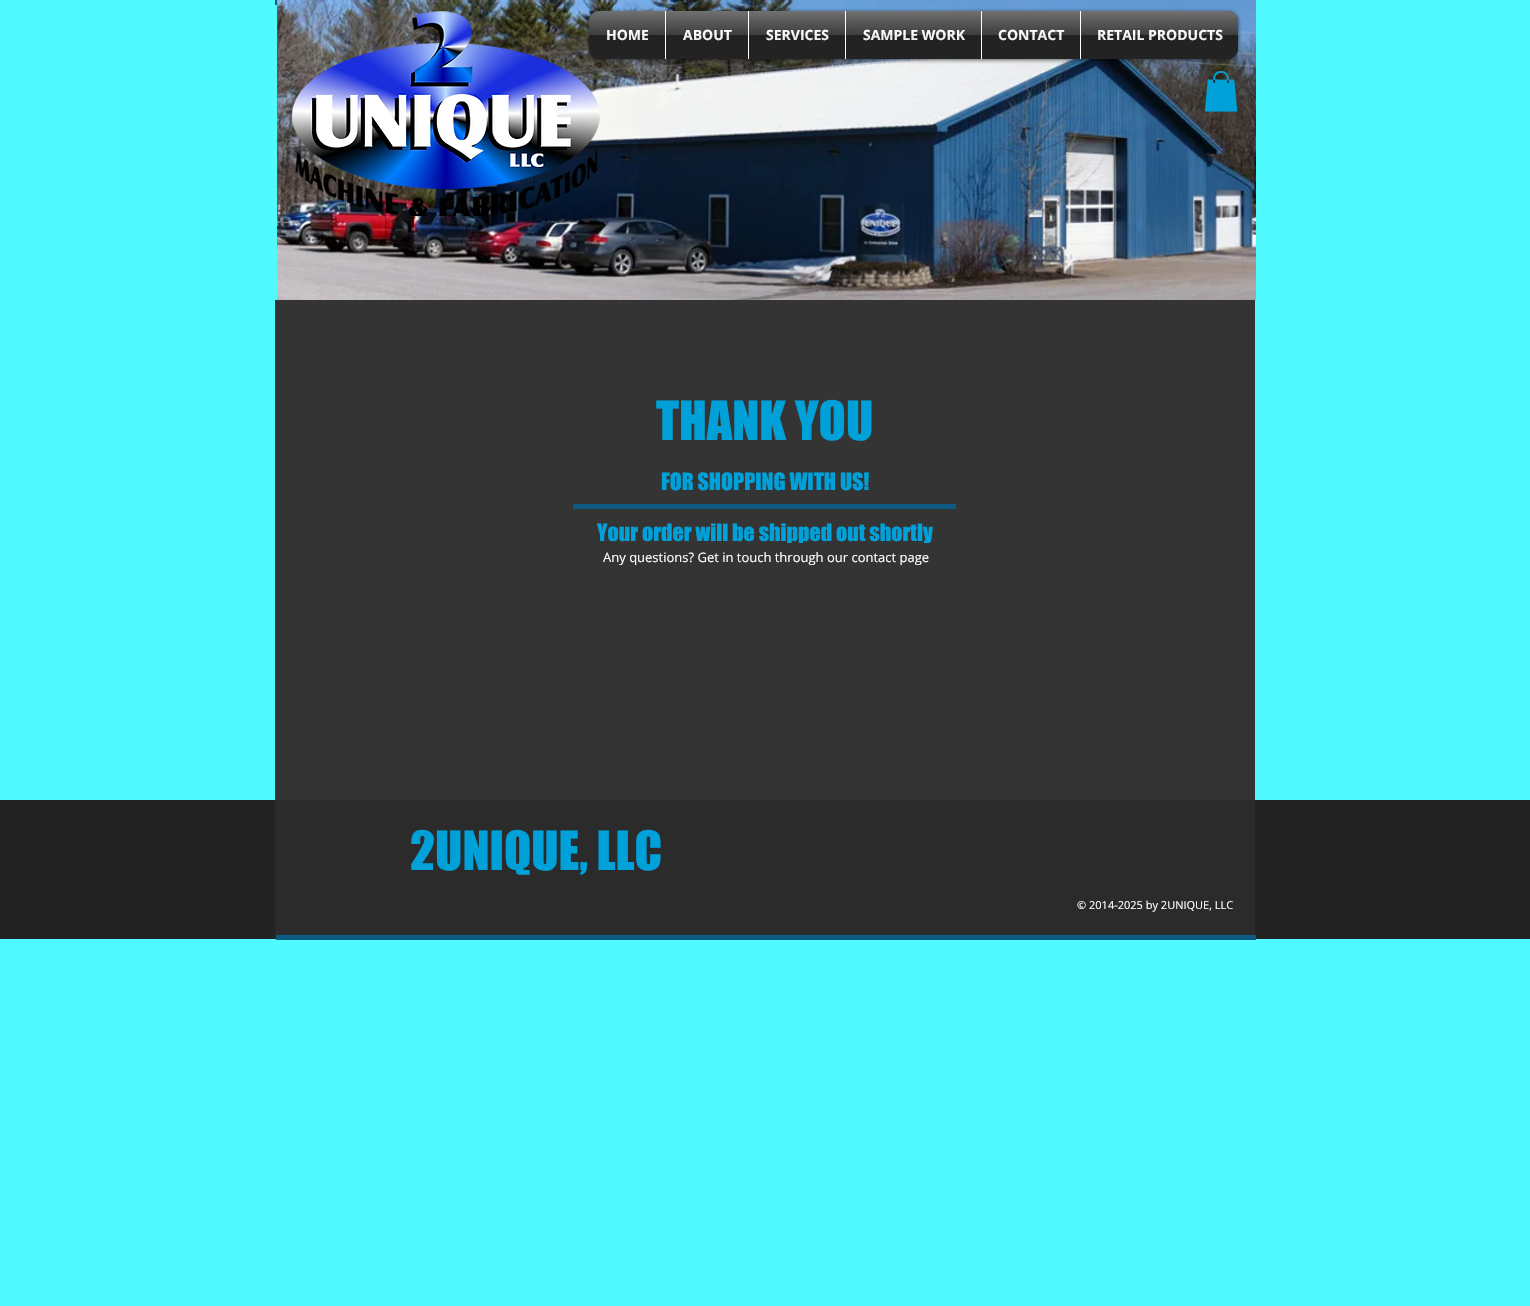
static SkFont makeFont(const char* family, int weight, float size, bool italic = false) {
  SkFontStyle style(weight, SkFontStyle::kNormal_Width,
    italic ? SkFontStyle::kItalic_Slant : SkFontStyle::kUpright_Slant);
  SkFont result(fontMgr->matchFamilyStyle(family, style), size);
  result.setSubpixel(true);
  return result;
}

static void text(SkCanvas* c, const char* s, float x, float y, const SkFont& font, SkColor color) {
  SkPaint ink(SkColor4f::FromColor(color));
  ink.setAntiAlias(true);
  c->drawString(s, x, y, font, ink);
}

static void box(SkCanvas* c, float l, float t, float r, float b, SkColor color) {
  SkPaint ink(SkColor4f::FromColor(color));
  ink.setAntiAlias(true);
  c->drawRect(SkRect::MakeLTRB(l, t, r, b), ink);
}

static void picture(SkCanvas* c, const char* path, float l, float t, float r, float b) {
  auto image = SkImages::DeferredFromEncodedData(SkData::MakeFromFileName(path));
  c->drawImageRect(image, SkRect::MakeLTRB(l, t, r, b), SkSamplingOptions());
}

void draw(SkCanvas* c) {
  SkPaint paint;
  paint.setAntiAlias(true);
  c->clear(0xff50fafe);
  box(c, 275, 0, 277, 5, 0xff0a5a82);
  picture(c, "img_01.png", 277, 0, 1256, 300);
  picture(c, "img_02.png", 291, 11, 600, 216);
  paint.setColor(0x99000000);
  paint.setMaskFilter(SkMaskFilter::MakeBlur(kNormal_SkBlurStyle, 2));
  c->drawRoundRect(SkRect::MakeLTRB(589, 12, 1238, 60), 10, 10, paint);
  paint.setMaskFilter(nullptr);
  picture(c, "img_03.png", 589, 11, 1238, 21);
  paint.setColor(0xff232323);
  c->drawPath(SkPathBuilder().moveTo(599, 11).lineTo(665, 11).lineTo(665, 59).lineTo(599, 59).cubicTo(593.5f, 59, 589, 54.5f, 589, 49).lineTo(589, 21).cubicTo(589, 15.5f, 593.5f, 11, 599, 11).close().detach(), paint);
  SkFont face1 = makeFont("Open Sans", 700, 14);
  text(c, "HOME", 606, 40, face1, 0xffffffff);
  picture(c, "img_04.png", 589, 11, 665, 40);
  box(c, 666, 11, 748, 59, 0xff232323);
  box(c, 665, 11, 666, 59, 0xffffffff);
  text(c, "ABOUT", 683, 40, face1, 0xffffffff);
  picture(c, "img_05.png", 666, 11, 748, 40);
  box(c, 749, 11, 845, 59, 0xff232323);
  box(c, 748, 11, 749, 59, 0xffffffff);
  text(c, "SERVICES", 766, 40, face1, 0xffffffff);
  picture(c, "img_06.png", 749, 11, 845, 40);
  box(c, 846, 11, 981, 59, 0xff232323);
  box(c, 845, 11, 846, 59, 0xffffffff);
  text(c, "SAMPLE WORK", 863, 40, face1, 0xffffffff);
  picture(c, "img_07.png", 846, 11, 981, 40);
  box(c, 982, 11, 1080, 59, 0xff232323);
  box(c, 981, 11, 982, 59, 0xffffffff);
  text(c, "CONTACT", 998, 40, face1, 0xffffffff);
  picture(c, "img_08.png", 982, 11, 1080, 40);
  c->drawPath(SkPathBuilder().moveTo(1080, 11).lineTo(1228, 11).cubicTo(1233.5f, 11, 1238, 15.5f, 1238, 21).lineTo(1238, 49).cubicTo(1238, 54.5f, 1233.5f, 59, 1228, 59).lineTo(1080, 59).close().detach(), paint);
  box(c, 1080, 11, 1081, 59, 0xffffffff);
  text(c, "RETAIL PRODUCTS", 1097, 40, face1, 0xffffffff);
  picture(c, "img_09.png", 1081, 11, 1238, 40);
  picture(c, "img_10.png", 1204, 71, 1238, 112);
  box(c, 275, 300, 1255, 800, 0xff343434);
  SkFont face2 = makeFont("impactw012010", 400, 50);
  text(c, "THANK YOU", 656, 440, face2, 0xff00a0d9);
  SkFont face3 = makeFont("impactw012010", 400, 22);
  text(c, "FOR SHOPPING WITH US!", 661, 490, face3, 0xff00a0d9);
  box(c, 573, 504, 956, 509, 0xff0a5a82);
  text(c, "Your order will be shipped out shortly", 597, 541, face3, 0xff00a0d9);
  SkFont face4 = makeFont("Open Sans", 400, 13);
  text(c, "Any questions? Get in touch through our contact page", 603, 562, face4, 0xffffffff);
  box(c, 0, 800, 1530, 939, 0xff232323);
  box(c, 275, 800, 1255, 939, 0xff2b2b2b);
  text(c, "2UNIQUE, LLC", 410, 870, face2, 0xff00a0d9);
  SkFont face5 = makeFont("Open Sans", 400, 11);
  text(c, "© 2014-2025 by 2UNIQUE, LLC", 1077, 909, face5, 0xffffffff);
  box(c, 276, 935, 1256, 940, 0xff0a5a82);
}
